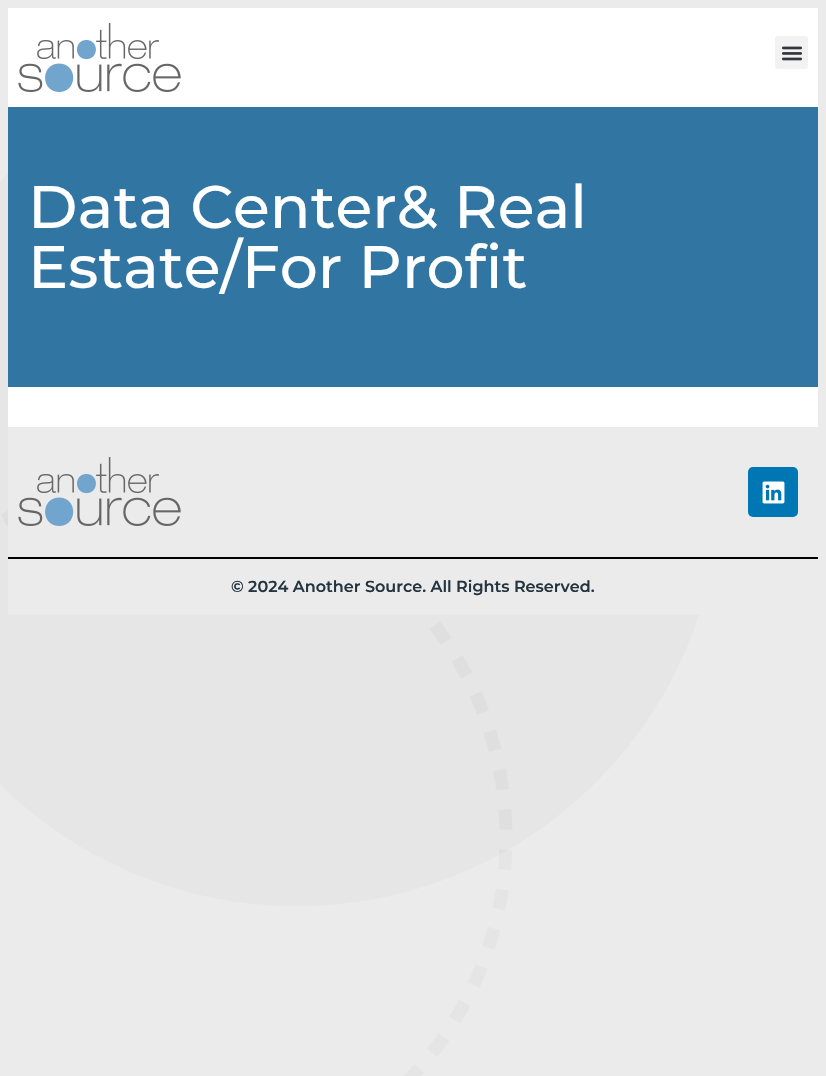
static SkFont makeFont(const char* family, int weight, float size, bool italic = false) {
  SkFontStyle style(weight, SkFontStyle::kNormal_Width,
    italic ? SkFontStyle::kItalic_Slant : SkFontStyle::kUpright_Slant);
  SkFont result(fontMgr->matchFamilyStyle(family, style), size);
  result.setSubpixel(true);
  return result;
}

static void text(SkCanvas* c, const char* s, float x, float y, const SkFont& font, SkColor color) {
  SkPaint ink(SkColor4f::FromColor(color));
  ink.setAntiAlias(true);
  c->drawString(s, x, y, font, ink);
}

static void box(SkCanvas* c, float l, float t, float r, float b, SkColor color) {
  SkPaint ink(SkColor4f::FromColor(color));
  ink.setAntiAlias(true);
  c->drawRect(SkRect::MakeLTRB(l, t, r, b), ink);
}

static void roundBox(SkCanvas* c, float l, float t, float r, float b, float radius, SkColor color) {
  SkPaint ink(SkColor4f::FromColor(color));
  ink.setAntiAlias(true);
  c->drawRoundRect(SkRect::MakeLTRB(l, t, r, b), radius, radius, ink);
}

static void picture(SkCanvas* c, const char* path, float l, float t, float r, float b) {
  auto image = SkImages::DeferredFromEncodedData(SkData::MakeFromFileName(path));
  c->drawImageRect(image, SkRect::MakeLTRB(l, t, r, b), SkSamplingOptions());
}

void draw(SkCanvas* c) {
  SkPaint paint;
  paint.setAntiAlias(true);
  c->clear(0xffebebeb);
  picture(c, "img_01.png", 0, 174, 699, 1076);
  box(c, 8, 8, 818, 107, 0xffffffff);
  picture(c, "img_02.png", 18, 23, 181, 92);
  roundBox(c, 775, 36, 808, 69, 3, 0xfff2f2f2);
  picture(c, "img_03.png", 781, 46, 803, 61);
  box(c, 8, 107, 818, 387, 0xff3175a3);
  SkFont face1 = makeFont("Montserrat", 500, 60);
  text(c, "Data Center& Real", 28, 228, face1, 0xffffffff);
  text(c, "Estate/For Profit", 28, 288, face1, 0xffffffff);
  box(c, 8, 387, 818, 427, 0xffffffff);
  box(c, 8, 427, 699, 615, 0xffebebeb);
  picture(c, "img_04.png", 18, 457, 181, 526);
  roundBox(c, 748, 467, 798, 517, 5, 0xff0077b5);
  picture(c, "img_05.png", 762, 481, 785, 504);
  box(c, 8, 557, 818, 559, 0xff000000);
  SkFont face2 = makeFont("Montserrat", 600, 16);
  text(c, "© 2024 Another Source. All Rights Reserved.", 231, 592, face2, 0xff243440);
}
